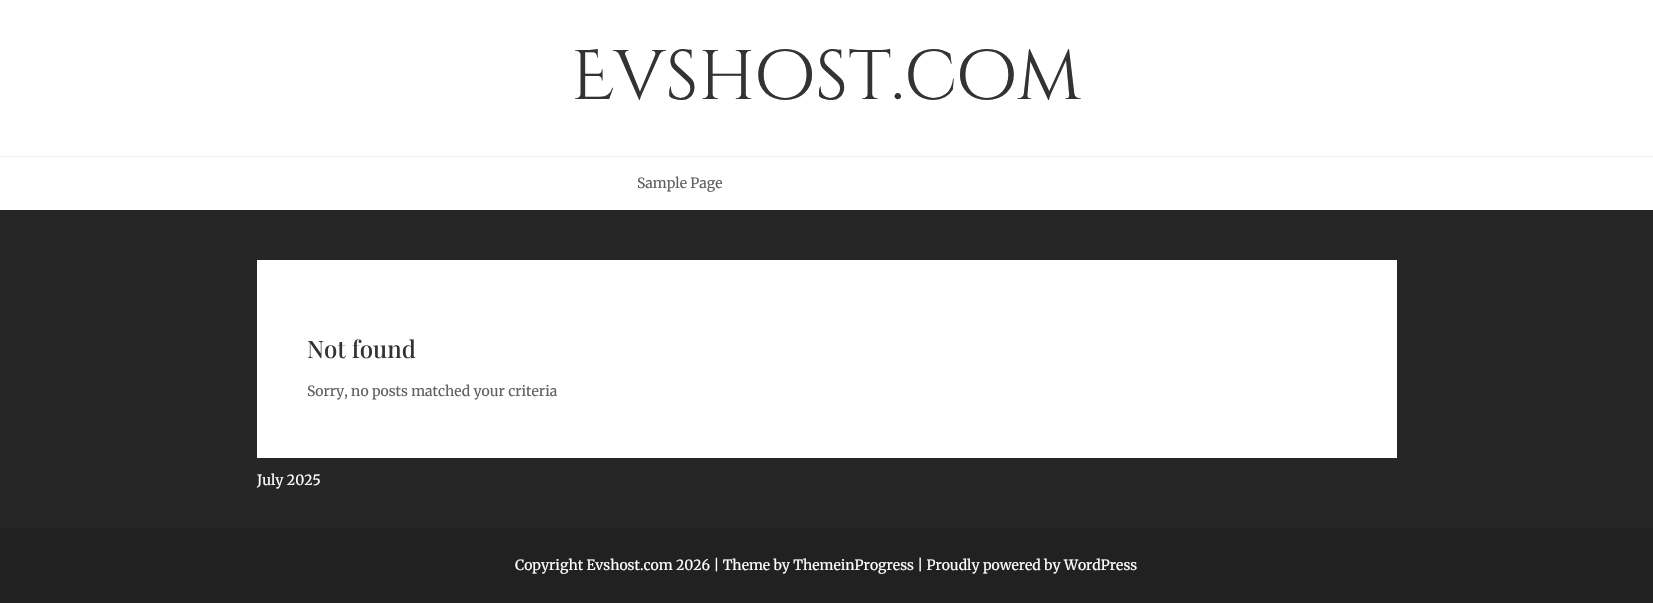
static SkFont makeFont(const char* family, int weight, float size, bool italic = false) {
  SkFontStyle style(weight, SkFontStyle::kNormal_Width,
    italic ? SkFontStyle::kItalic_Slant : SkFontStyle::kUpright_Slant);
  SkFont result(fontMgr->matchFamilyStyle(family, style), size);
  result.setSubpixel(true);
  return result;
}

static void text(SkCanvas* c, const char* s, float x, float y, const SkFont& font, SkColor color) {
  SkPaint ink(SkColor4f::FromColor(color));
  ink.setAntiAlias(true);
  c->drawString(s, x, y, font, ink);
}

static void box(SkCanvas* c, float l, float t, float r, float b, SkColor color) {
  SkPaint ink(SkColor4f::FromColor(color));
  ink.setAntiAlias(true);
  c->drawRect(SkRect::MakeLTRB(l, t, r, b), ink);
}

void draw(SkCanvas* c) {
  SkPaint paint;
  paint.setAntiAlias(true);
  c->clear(0xff212121);
  box(c, 0, 0, 1653, 210, 0xffffffff);
  SkFont face1 = makeFont("Cinzel Decorative", 400, 70);
  text(c, "Evshost.com", 571, 99, face1, 0xff333333);
  box(c, 0, 156, 1653, 157, 0xfff1f1f1);
  SkFont face2 = makeFont("Merriweather", 400, 14);
  text(c, "Sample Page", 637, 188, face2, 0xff616161);
  box(c, 0, 210, 1653, 528, 0xff262626);
  box(c, 257, 260, 1397, 458, 0xffffffff);
  SkFont face3 = makeFont("Playfair Display", 500, 24);
  text(c, "Not found", 307, 358, face3, 0xff333333);
  text(c, "Sorry, no posts matched your criteria", 307, 396, face2, 0xff616161);
  text(c, "July 2025", 257, 485, face2, 0xffffffff);
  text(c, "Copyright Evshost.com 2026 | Theme by ThemeinProgress | Proudly powered by WordPress", 515, 570, face2, 0xffffffff);
}
